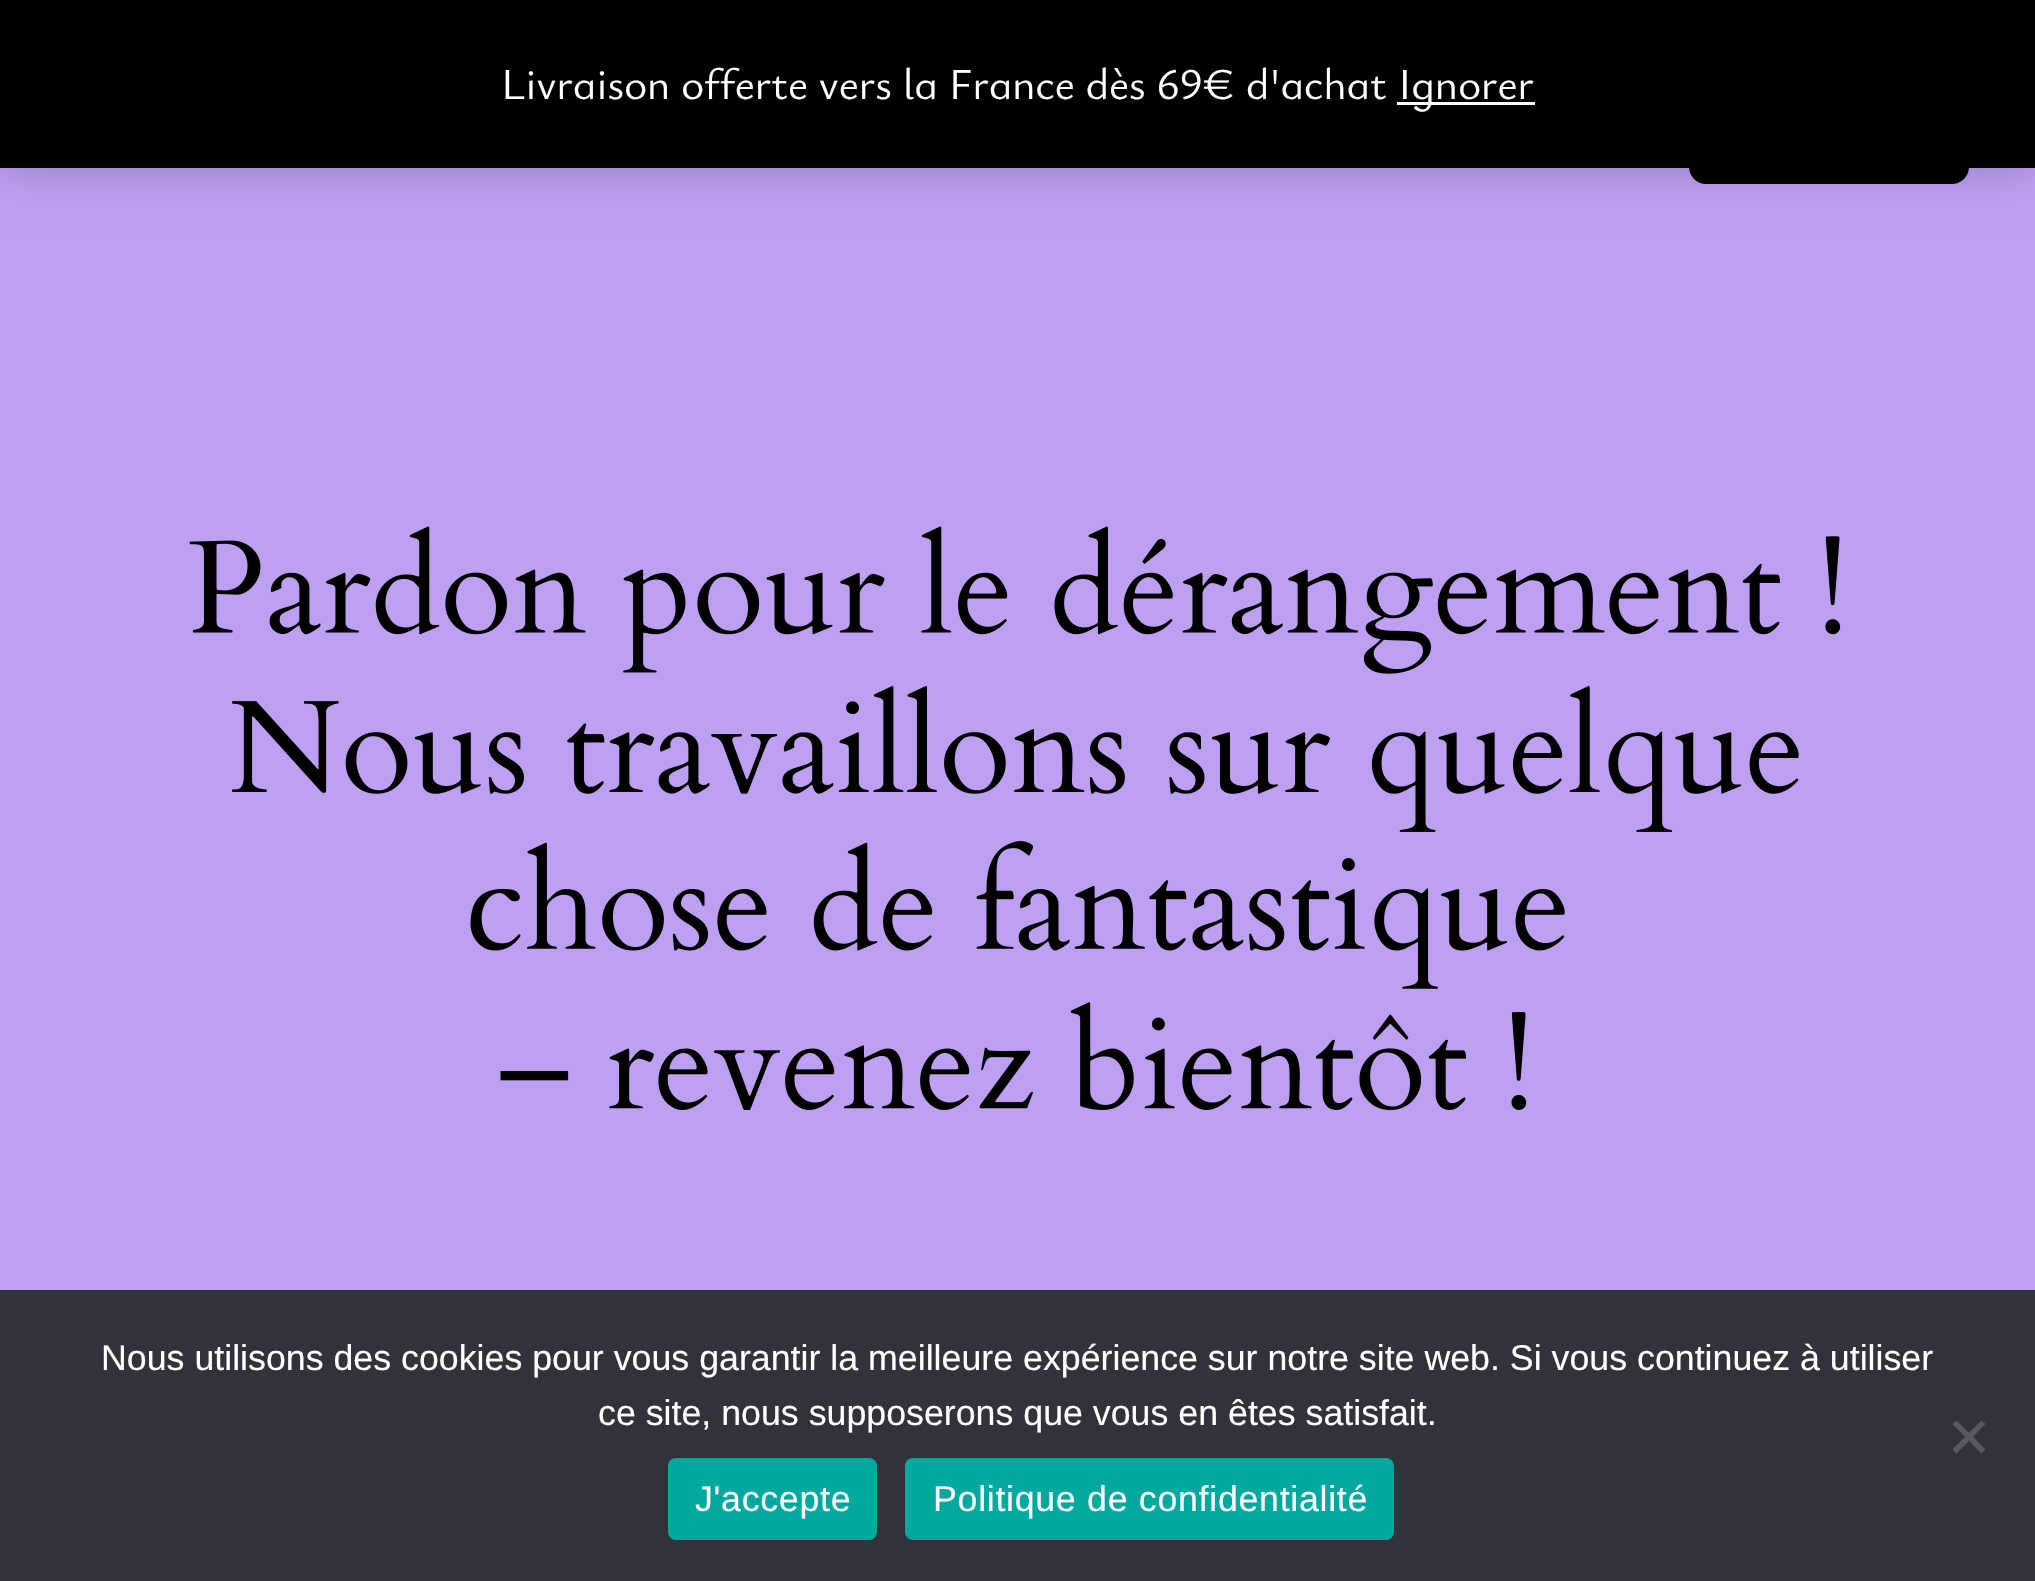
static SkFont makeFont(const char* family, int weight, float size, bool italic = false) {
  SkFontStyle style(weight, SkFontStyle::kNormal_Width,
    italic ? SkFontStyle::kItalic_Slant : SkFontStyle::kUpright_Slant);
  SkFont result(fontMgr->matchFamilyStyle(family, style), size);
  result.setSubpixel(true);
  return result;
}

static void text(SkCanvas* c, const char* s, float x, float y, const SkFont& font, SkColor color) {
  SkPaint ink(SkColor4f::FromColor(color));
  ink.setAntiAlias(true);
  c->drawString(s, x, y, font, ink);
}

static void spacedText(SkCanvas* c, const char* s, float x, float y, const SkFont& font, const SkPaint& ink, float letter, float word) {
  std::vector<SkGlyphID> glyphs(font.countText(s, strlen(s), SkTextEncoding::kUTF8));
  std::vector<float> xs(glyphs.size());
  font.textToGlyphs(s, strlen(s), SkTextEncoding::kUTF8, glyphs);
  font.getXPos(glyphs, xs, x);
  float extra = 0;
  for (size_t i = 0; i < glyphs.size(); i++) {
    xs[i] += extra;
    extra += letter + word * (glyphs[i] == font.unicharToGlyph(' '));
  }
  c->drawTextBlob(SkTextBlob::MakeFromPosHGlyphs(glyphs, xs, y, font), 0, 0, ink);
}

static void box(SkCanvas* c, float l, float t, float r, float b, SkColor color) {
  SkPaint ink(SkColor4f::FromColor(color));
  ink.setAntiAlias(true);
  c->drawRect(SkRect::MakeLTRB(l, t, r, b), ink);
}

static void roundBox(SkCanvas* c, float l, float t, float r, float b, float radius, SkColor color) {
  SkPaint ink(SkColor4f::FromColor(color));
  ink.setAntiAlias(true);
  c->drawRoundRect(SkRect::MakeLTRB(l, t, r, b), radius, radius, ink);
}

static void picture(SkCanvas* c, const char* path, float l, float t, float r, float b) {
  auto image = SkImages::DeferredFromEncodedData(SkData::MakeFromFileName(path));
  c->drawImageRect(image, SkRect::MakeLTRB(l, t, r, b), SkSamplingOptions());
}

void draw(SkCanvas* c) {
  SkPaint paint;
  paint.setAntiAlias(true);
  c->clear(0xffbea0f2);
  roundBox(c, 1689, 72, 1969, 184, 17, 0xff000000);
  paint.setColor(0x33000000);
  paint.setMaskFilter(SkMaskFilter::MakeBlur(kNormal_SkBlurStyle, 22));
  c->drawRect(SkRect::MakeLTRB(0, 3, 2035, 171), paint);
  paint.setMaskFilter(nullptr);
  box(c, 0, 0, 2035, 168, 0xff000000);
  SkFont face1 = makeFont("Ysabeau Infant", 400, 44);
  text(c, "Livraison offerte vers la France dès 69€ d'achat", 501, 99, face1, 0xffffffff);
  box(c, 1397, 102, 1535, 105, 0xffffffff);
  text(c, "Ignorer", 1398, 99, face1, 0xffffffff);
  picture(c, "img_01.png", 189, 526, 1841, 674);
  picture(c, "img_02.png", 232, 686, 1799, 832);
  picture(c, "img_03.png", 470, 841, 1565, 989);
  picture(c, "img_04.png", 500, 1002, 1527, 1110);
  box(c, 0, 1290, 2035, 1581, 0xff32323a);
  SkFont face2 = makeFont("Liberation Sans", 400, 35.75f);
  text(c, "Nous utilisons des cookies pour vous garantir la meilleure expérience sur notre site web. Si vous continuez à utiliser", 101, 1370, face2, 0xffffffff);
  text(c, "ce site, nous supposerons que vous en êtes satisfait.", 598, 1425, face2, 0xffffffff);
  paint.setColor(0xff59595d);
  c->drawPath(SkPathBuilder().moveTo(1981.5f, 1420.5f).lineTo(1985.5f, 1424).lineTo(1956.5f, 1453.5f).lineTo(1952.5f, 1449.5f).close().detach(), paint);
  c->drawPath(SkPathBuilder().moveTo(1952.5f, 1424).lineTo(1956.5f, 1420.5f).lineTo(1985.5f, 1449.5f).lineTo(1981.5f, 1453.5f).close().detach(), paint);
  roundBox(c, 668, 1458, 877, 1540, 8, 0xff00a99d);
  paint.setColor(0xffffffff);
  spacedText(c, "J'accepte", 695, 1511, face2, paint, 0.7f, 0);
  roundBox(c, 905, 1458, 1394, 1540, 8, 0xff00a99d);
  spacedText(c, "Politique de confidentialité", 933, 1511, face2, paint, 0.7f, 0);
}
